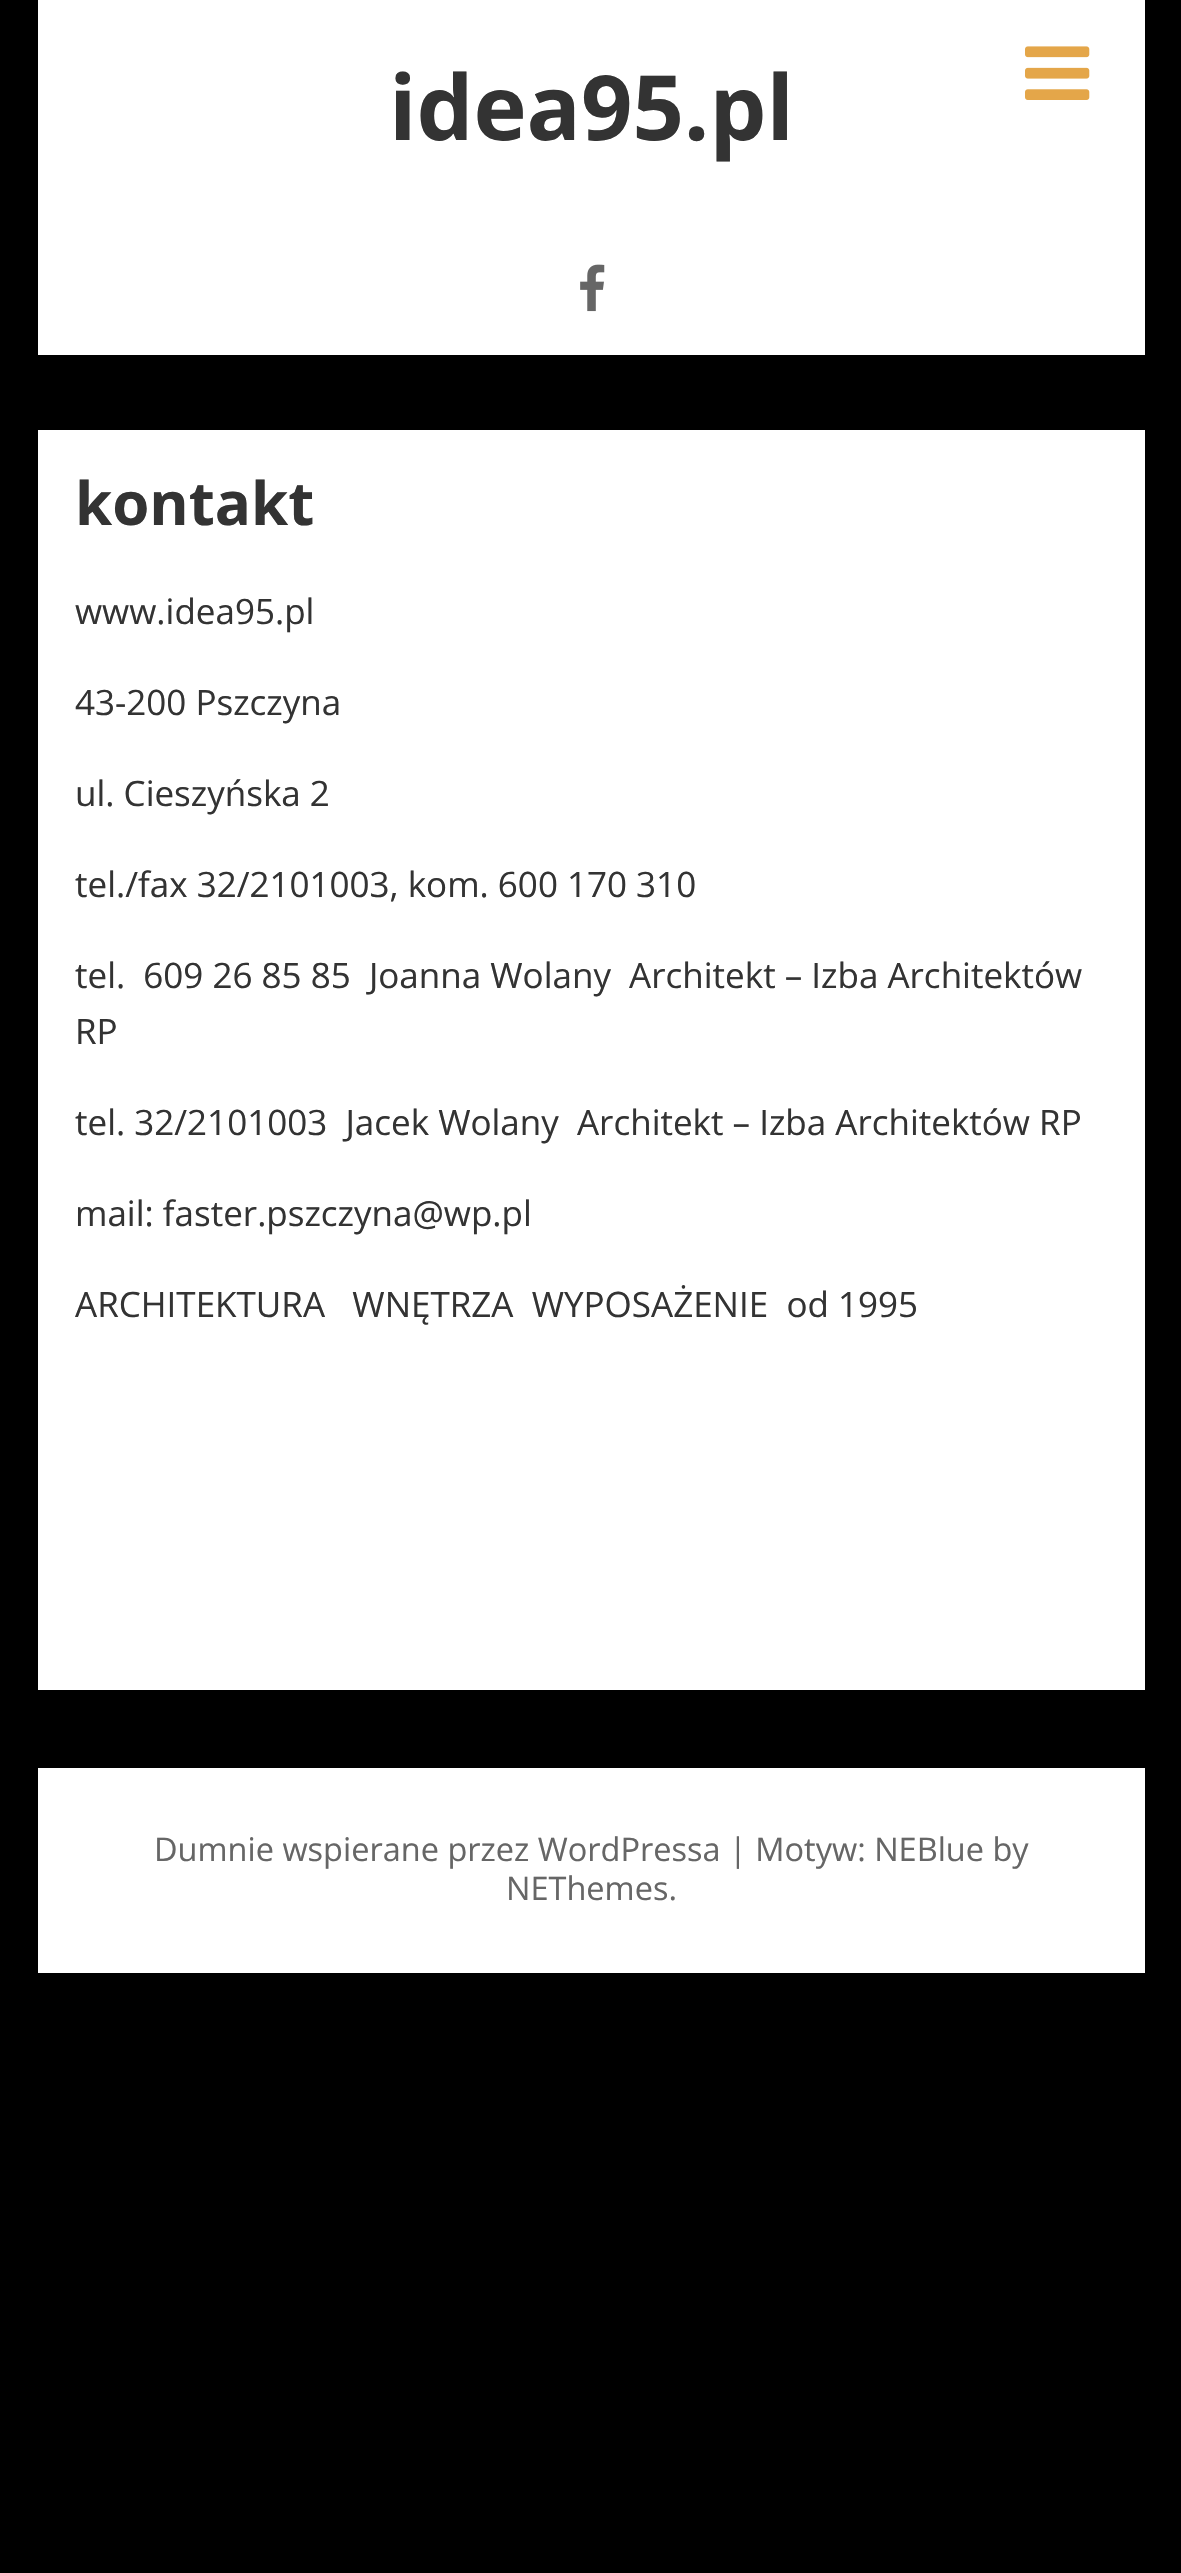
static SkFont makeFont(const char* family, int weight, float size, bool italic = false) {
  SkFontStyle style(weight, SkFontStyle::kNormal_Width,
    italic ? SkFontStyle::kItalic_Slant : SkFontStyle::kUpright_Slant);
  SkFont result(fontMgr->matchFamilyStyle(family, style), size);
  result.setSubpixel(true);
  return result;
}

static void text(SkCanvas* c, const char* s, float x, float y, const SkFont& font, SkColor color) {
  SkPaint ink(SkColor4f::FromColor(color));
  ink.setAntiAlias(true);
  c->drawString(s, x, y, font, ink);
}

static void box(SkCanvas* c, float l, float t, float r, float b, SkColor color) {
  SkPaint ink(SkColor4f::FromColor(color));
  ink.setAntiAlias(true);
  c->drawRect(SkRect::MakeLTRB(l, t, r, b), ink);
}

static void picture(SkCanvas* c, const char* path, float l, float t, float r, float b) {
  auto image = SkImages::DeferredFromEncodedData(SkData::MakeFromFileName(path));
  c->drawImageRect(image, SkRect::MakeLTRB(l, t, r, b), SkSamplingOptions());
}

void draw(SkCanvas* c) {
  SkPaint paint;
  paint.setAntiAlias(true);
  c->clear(0xff000000);
  box(c, 38, 0, 1145, 355, 0xffffffff);
  SkFont face1 = makeFont("Open Sans", 700, 90);
  text(c, "idea95.pl", 389, 140, face1, 0xff333333);
  picture(c, "img_01.png", 1025, 46, 1090, 100);
  picture(c, "img_02.png", 580, 264, 605, 312);
  box(c, 38, 430, 1145, 1690, 0xffffffff);
  SkFont face2 = makeFont("Open Sans", 700, 60);
  text(c, "kontakt", 75, 525, face2, 0xff333333);
  SkFont face3 = makeFont("Open Sans", 400, 35);
  text(c, "www.idea95.pl", 75, 624, face3, 0xff333333);
  text(c, "43-200 Pszczyna", 75, 715, face3, 0xff333333);
  text(c, "ul. Cieszyńska 2", 75, 806, face3, 0xff333333);
  text(c, "tel./fax 32/2101003, kom. 600 170 310", 75, 897, face3, 0xff333333);
  text(c, "tel.  609 26 85 85  Joanna Wolany  Architekt – Izba Architektów", 75, 988, face3, 0xff333333);
  text(c, "RP", 75, 1044, face3, 0xff333333);
  text(c, "tel. 32/2101003  Jacek Wolany  Architekt – Izba Architektów RP", 75, 1135, face3, 0xff333333);
  text(c, "mail: faster.pszczyna@wp.pl", 75, 1226, face3, 0xff333333);
  text(c, "ARCHITEKTURA   WNĘTRZA  WYPOSAŻENIE  od 1995", 75, 1317, face3, 0xff333333);
  box(c, 38, 1768, 1145, 1973, 0xffffffff);
  SkFont face4 = makeFont("Open Sans", 400, 32.5f);
  text(c, "Dumnie wspierane przez WordPressa | Motyw: NEBlue by", 154, 1861, face4, 0xff666666);
  text(c, "NEThemes.", 506, 1900, face4, 0xff666666);
}
